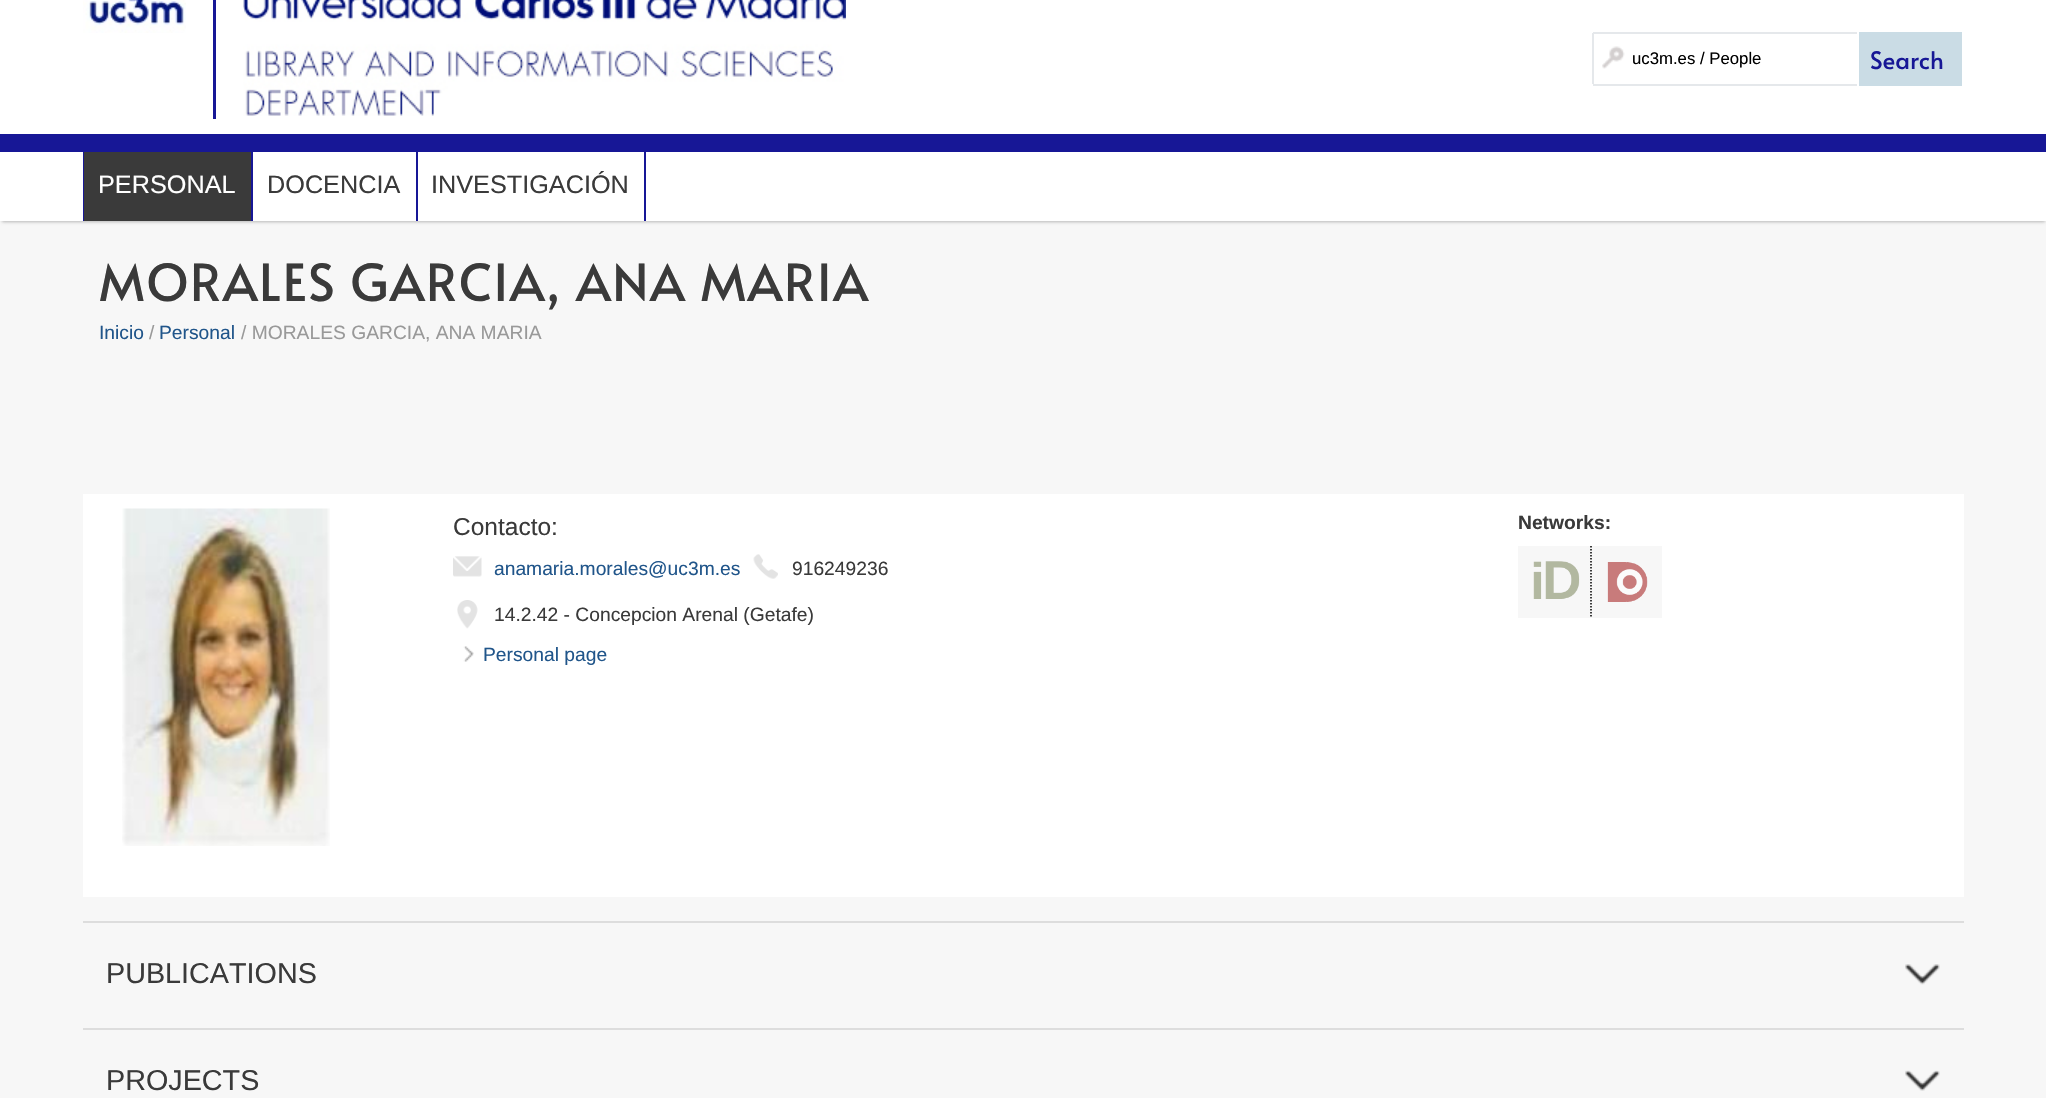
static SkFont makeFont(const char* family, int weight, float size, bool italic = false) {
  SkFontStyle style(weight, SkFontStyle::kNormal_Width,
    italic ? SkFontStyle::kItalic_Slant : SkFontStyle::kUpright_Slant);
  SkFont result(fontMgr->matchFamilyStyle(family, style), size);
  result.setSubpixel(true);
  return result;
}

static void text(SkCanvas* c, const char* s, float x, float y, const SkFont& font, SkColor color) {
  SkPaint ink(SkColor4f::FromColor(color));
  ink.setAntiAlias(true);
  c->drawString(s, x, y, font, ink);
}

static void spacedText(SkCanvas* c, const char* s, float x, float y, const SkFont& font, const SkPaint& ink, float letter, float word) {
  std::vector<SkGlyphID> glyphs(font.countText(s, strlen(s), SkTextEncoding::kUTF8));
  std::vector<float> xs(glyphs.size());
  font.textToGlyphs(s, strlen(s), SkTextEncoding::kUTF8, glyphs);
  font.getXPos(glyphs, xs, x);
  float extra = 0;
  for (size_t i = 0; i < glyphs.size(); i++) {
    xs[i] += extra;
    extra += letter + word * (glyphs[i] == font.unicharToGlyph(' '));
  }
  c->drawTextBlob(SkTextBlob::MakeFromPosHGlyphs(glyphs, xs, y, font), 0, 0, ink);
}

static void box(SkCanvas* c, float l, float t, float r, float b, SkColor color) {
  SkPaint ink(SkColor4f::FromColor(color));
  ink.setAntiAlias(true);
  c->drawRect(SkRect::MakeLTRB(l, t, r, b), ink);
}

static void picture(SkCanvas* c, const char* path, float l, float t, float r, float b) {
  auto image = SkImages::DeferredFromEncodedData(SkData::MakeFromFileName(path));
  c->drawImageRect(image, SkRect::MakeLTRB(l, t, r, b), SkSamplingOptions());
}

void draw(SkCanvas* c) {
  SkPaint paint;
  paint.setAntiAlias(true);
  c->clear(0xfff7f7f7);
  box(c, 0, 0, 2046, 134, 0xffffffff);
  box(c, 0, 134, 2046, 152, 0xff171796);
  picture(c, "img_01.png", 83, 0, 186, 33);
  box(c, 213, 0, 216, 119, 0xff171796);
  picture(c, "img_02.png", 243, 0, 846, 116);
  picture(c, "img_03.png", 1602, 46, 1625, 69);
  box(c, 1593, 32, 1857, 34, 0xffe5e8eb);
  box(c, 1593, 84, 1857, 86, 0xffe5e8eb);
  box(c, 1592, 33, 1594, 84, 0xffe5e8eb);
  SkFont face1 = makeFont("Liberation Sans", 400, 16.75f);
  text(c, "uc3m.es / People", 1632, 64, face1, 0xff000000);
  box(c, 1859, 32, 1962, 86, 0xffcadce5);
  SkFont face2 = makeFont("Alata", 400, 24);
  text(c, "Search", 1870, 69, face2, 0xff171796);
  paint.setColor(0xffb7b7b7);
  paint.setMaskFilter(SkMaskFilter::MakeBlur(kNormal_SkBlurStyle, 1.5f));
  c->drawRect(SkRect::MakeLTRB(2, 156, 2045, 222), paint);
  paint.setMaskFilter(nullptr);
  box(c, 0, 152, 2046, 221, 0xffffffff);
  box(c, 251, 152, 253, 221, 0xff171796);
  box(c, 83, 152, 84, 221, 0xff171796);
  box(c, 84, 152, 251, 221, 0xff3a3a3a);
  SkFont face3 = makeFont("Liberation Sans", 400, 25.25f);
  text(c, "PERSONAL", 98, 193, face3, 0xffffffff);
  box(c, 416, 152, 418, 221, 0xff171796);
  text(c, "DOCENCIA", 267, 193, face3, 0xff3a3a3a);
  box(c, 644, 152, 646, 221, 0xff171796);
  text(c, "INVESTIGACIÓN", 431, 193, face3, 0xff3a3a3a);
  SkFont face4 = makeFont("Alata", 400, 51);
  paint.setColor(0xff3a3a3a);
  spacedText(c, "MORALES GARCIA, ANA MARIA", 99, 301, face4, paint, 1.5f, 0);
  SkFont face5 = makeFont("Liberation Sans", 400, 19.25f);
  text(c, "Inicio", 99, 339, face5, 0xff20558a);
  text(c, "/", 149, 339, face5, 0xff999999);
  text(c, "Personal", 159, 339, face5, 0xff20558a);
  text(c, "/ MORALES GARCIA, ANA MARIA", 241, 339, face5, 0xff999999);
  box(c, 83, 494, 1964, 897, 0xffffffff);
  picture(c, "img_04.png", 122, 508, 330, 846);
  SkFont face6 = makeFont("Liberation Sans", 400, 24.5f);
  text(c, "Contacto:", 453, 535, face6, 0xff3a3a3a);
  picture(c, "img_05.png", 453, 556, 482, 577);
  text(c, "anamaria.morales@uc3m.es", 494, 575, face5, 0xff20558a);
  picture(c, "img_06.png", 753, 554, 778, 579);
  text(c, "916249236", 792, 575, face5, 0xff3a3a3a);
  picture(c, "img_07.png", 457, 600, 478, 629);
  text(c, "14.2.42 - Concepcion Arenal (Getafe)", 494, 621, face5, 0xff3a3a3a);
  picture(c, "img_08.png", 463, 646, 474, 662);
  text(c, "Personal page", 483, 661, face5, 0xff20558a);
  SkFont face7 = makeFont("Liberation Sans", 700, 19.25f);
  text(c, "Networks:", 1518, 529, face7, 0xff3a3a3a);
  box(c, 1518, 546, 1662, 618, 0xfff7f7f7);
  picture(c, "img_09.png", 1533, 561, 1580, 599);
  paint.setStyle(SkPaint::kStroke_Style);
  paint.setStrokeWidth(1.5f);
  paint.setColor(0xff000000);
  paint.setPathEffect(SkDashPathEffect::Make({{1.5f, 1.5f}}, 0));
  c->drawPath(SkPathBuilder().moveTo(1591, 546).lineTo(1591, 618).detach(), paint);
  paint.setPathEffect(nullptr);
  picture(c, "img_10.png", 1607, 562, 1648, 602);
  box(c, 83, 921, 1964, 923, 0xffdddddd);
  picture(c, "img_11.png", 1905, 964, 1940, 985);
  SkFont face8 = makeFont("Liberation Sans", 400, 28.75f);
  text(c, "PUBLICATIONS", 106, 983, face8, 0xff3a3a3a);
  box(c, 83, 1028, 1964, 1030, 0xffdddddd);
  picture(c, "img_12.png", 1905, 1070, 1940, 1091);
  text(c, "PROJECTS", 106, 1090, face8, 0xff3a3a3a);
}
